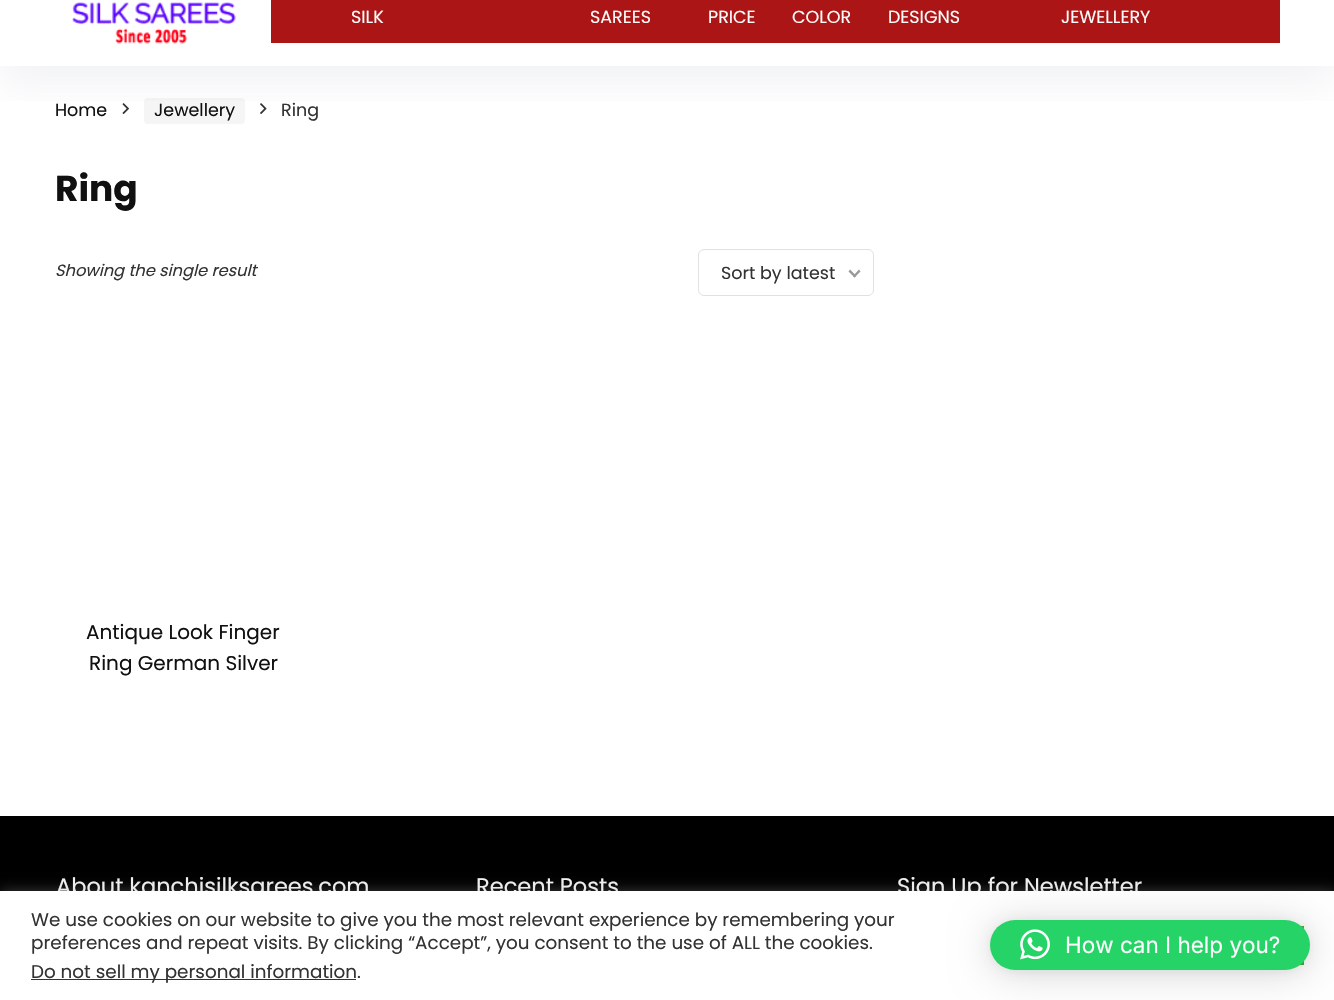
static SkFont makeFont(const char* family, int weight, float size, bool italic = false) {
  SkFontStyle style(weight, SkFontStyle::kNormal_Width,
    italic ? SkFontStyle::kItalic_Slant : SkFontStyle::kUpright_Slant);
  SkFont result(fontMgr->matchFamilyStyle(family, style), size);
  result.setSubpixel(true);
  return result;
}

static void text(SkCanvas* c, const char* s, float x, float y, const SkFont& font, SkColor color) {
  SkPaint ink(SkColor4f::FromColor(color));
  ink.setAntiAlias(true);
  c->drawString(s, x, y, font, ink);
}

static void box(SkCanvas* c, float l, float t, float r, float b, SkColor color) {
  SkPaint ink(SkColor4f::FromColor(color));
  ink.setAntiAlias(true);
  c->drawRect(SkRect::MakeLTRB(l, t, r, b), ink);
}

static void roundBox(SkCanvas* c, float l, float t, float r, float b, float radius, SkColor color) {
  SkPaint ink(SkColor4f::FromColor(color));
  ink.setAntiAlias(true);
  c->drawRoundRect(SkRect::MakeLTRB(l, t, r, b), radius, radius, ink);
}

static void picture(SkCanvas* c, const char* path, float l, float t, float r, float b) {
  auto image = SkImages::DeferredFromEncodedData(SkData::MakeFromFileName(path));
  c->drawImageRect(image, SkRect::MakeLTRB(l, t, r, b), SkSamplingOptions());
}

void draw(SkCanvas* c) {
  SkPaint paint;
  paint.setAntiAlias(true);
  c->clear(0xffffffff);
  picture(c, "img_02.png", 122, 103, 129, 114);
  roundBox(c, 144, 98, 245, 124, 4, 0xfff5f5f5);
  picture(c, "img_03.png", 260, 103, 267, 114);
  c->save();
  c->clipRect(SkRect::MakeLTRB(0, 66, 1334, 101));
  paint.setColor(0x1a777b92);
  paint.setMaskFilter(SkMaskFilter::MakeBlur(kNormal_SkBlurStyle, 19));
  c->drawRect(SkRect::MakeLTRB(0, -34, 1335, 85), paint);
  paint.setMaskFilter(nullptr);
  c->restore();
  picture(c, "img_01.png", 72, 2, 236, 44);
  box(c, 271, 0, 1280, 43, 0xffab1515);
  SkFont face1 = makeFont("Poppins", 400, 17.5f);
  text(c, "SILK", 351, 23, face1, 0xfffbfbfb);
  text(c, "SAREES", 590, 23, face1, 0xfffbfbfb);
  text(c, "PRICE", 708, 23, face1, 0xfffbfbfb);
  text(c, "COLOR", 792, 23, face1, 0xfffbfbfb);
  text(c, "DESIGNS", 888, 23, face1, 0xfffbfbfb);
  text(c, "JEWELLERY", 1061, 23, face1, 0xfffbfbfb);
  text(c, "Home", 55, 116, face1, 0xff111111);
  text(c, "Jewellery", 154, 116, face1, 0xff111111);
  text(c, "Ring", 281, 116, face1, 0xff333333);
  SkFont face2 = makeFont("Poppins", 700, 36);
  text(c, "Ring", 55, 201, face2, 0xff111111);
  SkFont face3 = makeFont("Poppins", 400, 16.25f, true);
  text(c, "Showing the single result", 55, 276, face3, 0xff333333);
  paint.setStyle(SkPaint::kStroke_Style);
  paint.setStrokeWidth(1);
  paint.setColor(0xffe1e1e1);
  c->drawRoundRect(SkRect::MakeLTRB(698.5f, 249.5f, 873.5f, 295.5f), 5.5f, 5.5f, paint);
  text(c, "Sort by latest", 721, 279, face1, 0xff333333);
  paint.setStyle(SkPaint::kFill_Style);
  paint.setColor(0xff999999);
  c->drawPath(SkPathBuilder().moveTo(859, 269.5f).lineTo(860.5f, 271.5f).lineTo(854.5f, 277.5f).lineTo(853, 276).close().detach(), paint);
  c->drawPath(SkPathBuilder().moveTo(850, 269.5f).lineTo(856.5f, 276).lineTo(854.5f, 277.5f).lineTo(848.5f, 271.5f).close().detach(), paint);
  SkFont face4 = makeFont("Poppins", 400, 20);
  text(c, "Antique Look Finger", 86, 639, face4, 0xff111111);
  text(c, "Ring German Silver", 89, 670, face4, 0xff111111);
  box(c, 0, 816, 1334, 891, 0xff000000);
  SkFont face5 = makeFont("Poppins", 400, 22.5f);
  text(c, "About kanchisilksarees.com", 56, 894, face5, 0xfff1f1f1);
  text(c, "Recent Posts", 476, 894, face5, 0xfff1f1f1);
  text(c, "Sign Up for Newsletter", 897, 894, face5, 0xfff1f1f1);
  paint.setColor(0x4dacabab);
  paint.setMaskFilter(SkMaskFilter::MakeBlur(kNormal_SkBlurStyle, 6));
  c->drawRect(SkRect::MakeLTRB(0, 890, 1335, 999), paint);
  paint.setMaskFilter(nullptr);
  box(c, 0, 891, 1334, 1000, 0xffffffff);
  SkFont face6 = makeFont("Poppins", 400, 18.35f);
  text(c, "We use cookies on our website to give you the most relevant experience by remembering your", 31, 926, face6, 0xff333333);
  text(c, "preferences and repeat visits. By clicking “Accept”, you consent to the use of ALL the cookies.", 31, 949, face6, 0xff333333);
  box(c, 31, 979, 356, 980, 0xff333333);
  text(c, "Do not sell my personal information.", 31, 978, face6, 0xff333333);
  box(c, 1300, 926, 1304, 965, 0xff61a229);
  paint.setColor(0x29000000);
  paint.setMaskFilter(SkMaskFilter::MakeBlur(kNormal_SkBlurStyle, 20));
  c->drawRoundRect(SkRect::MakeLTRB(990, 923, 1310, 973), 25, 25, paint);
  paint.setMaskFilter(nullptr);
  paint.setColor(0x0f000000);
  paint.setMaskFilter(SkMaskFilter::MakeBlur(kNormal_SkBlurStyle, 4));
  c->drawRoundRect(SkRect::MakeLTRB(990, 921, 1310, 971), 25, 25, paint);
  paint.setMaskFilter(nullptr);
  roundBox(c, 990, 920, 1310, 970, 25, 0xff25d366);
  picture(c, "img_04.png", 1020, 929, 1050, 960);
  SkFont face7 = makeFont("Inter", 400, 22.5f);
  text(c, "How can I help you?", 1065, 953, face7, 0xfffbfbfb);
}
